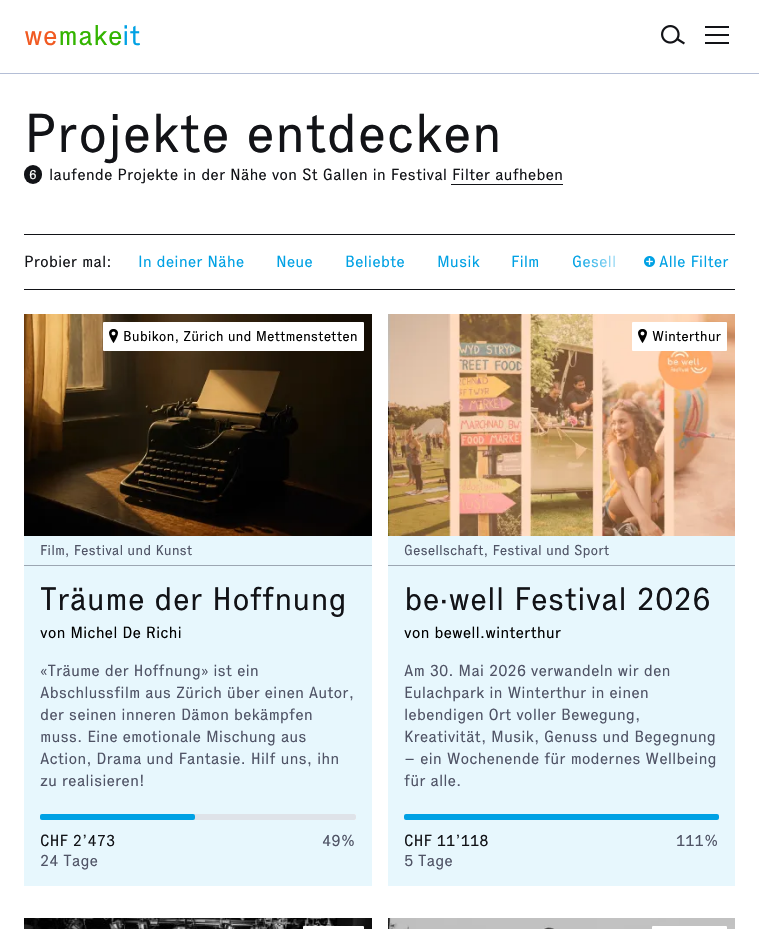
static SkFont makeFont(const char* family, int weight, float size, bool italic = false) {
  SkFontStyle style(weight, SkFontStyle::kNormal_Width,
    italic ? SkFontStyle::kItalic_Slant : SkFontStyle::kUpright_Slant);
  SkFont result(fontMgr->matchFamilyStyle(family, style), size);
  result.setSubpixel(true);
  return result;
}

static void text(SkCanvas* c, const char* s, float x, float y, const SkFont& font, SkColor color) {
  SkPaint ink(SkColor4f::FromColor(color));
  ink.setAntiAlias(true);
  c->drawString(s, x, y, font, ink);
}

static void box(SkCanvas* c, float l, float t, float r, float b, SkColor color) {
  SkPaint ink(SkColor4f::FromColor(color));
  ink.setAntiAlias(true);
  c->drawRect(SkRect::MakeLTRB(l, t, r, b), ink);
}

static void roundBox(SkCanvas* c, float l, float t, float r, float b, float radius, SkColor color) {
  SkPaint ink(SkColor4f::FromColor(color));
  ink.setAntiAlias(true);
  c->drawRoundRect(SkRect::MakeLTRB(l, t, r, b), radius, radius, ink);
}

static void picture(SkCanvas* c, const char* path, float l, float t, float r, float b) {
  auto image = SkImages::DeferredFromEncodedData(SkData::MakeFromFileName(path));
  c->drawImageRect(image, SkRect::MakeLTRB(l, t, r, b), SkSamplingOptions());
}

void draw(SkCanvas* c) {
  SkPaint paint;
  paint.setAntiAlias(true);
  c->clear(0xffffffff);
  box(c, 0, 73, 759, 74, 0xffb4bed6);
  SkFont face1 = makeFont("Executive", 400, 28);
  text(c, "we", 24, 45, face1, 0xfff15a22);
  text(c, "make", 58, 45, face1, 0xff33b400);
  text(c, "it", 122, 45, face1, 0xff00a1e4);
  picture(c, "img_01.png", 661, 25, 685, 45);
  box(c, 705, 34, 729, 36, 0xff121317);
  box(c, 705, 26, 729, 28, 0xff121317);
  box(c, 705, 42, 729, 44, 0xff121317);
  SkFont face2 = makeFont("Executive", 400, 54);
  text(c, "Projekte entdecken", 24, 152, face2, 0xff121317);
  roundBox(c, 24, 165, 42, 184, 9, 0xff121317);
  SkFont face3 = makeFont("Executive", 400, 13);
  text(c, "6", 29, 179, face3, 0xffffffff);
  SkFont face4 = makeFont("Executive", 400, 16);
  text(c, "laufende Projekte in der Nähe von St Gallen in Festival Filter aufheben", 49, 180, face4, 0xff121317);
  box(c, 451, 184, 563, 185, 0xff121317);
  box(c, 24, 234, 735, 235, 0xff121317);
  box(c, 24, 289, 735, 290, 0xff121317);
  text(c, "Probier mal:", 24, 267, face4, 0xff121317);
  text(c, "In deiner Nähe", 138, 267, face4, 0xff00a1e4);
  text(c, "Neue", 276, 267, face4, 0xff00a1e4);
  text(c, "Beliebte", 345, 267, face4, 0xff00a1e4);
  text(c, "Musik", 437, 267, face4, 0xff00a1e4);
  text(c, "Film", 511, 267, face4, 0xff00a1e4);
  text(c, "Gesell", 572, 267, face4, 0xff00a1e4);
  {
    const SkColor colors[] = {0x00ffffff, 0xffffffff};
    const float stops[] = {0, 0.4f};
    const SkPoint ends[] = {{575, 254}, {735, 254}};
    paint.setShader(SkGradientShader::MakeLinear(ends, colors, stops, 2, SkTileMode::kClamp));
    paint.setAlpha(255);
  }
  c->drawRect(SkRect::MakeLTRB(576, 255, 615, 268), paint);
  picture(c, "img_02.png", 644, 256, 655, 267);
  text(c, "Alle Filter", 659, 267, face4, 0xff00a1e4);
  box(c, 24, 536, 372, 886, 0xffe7f7fd);
  picture(c, "img_03.png", 24, 314, 372, 536);
  roundBox(c, 103, 322, 364, 351, 1, 0xffffffff);
  picture(c, "img_04.png", 109, 329, 118, 343);
  SkFont face5 = makeFont("Executive", 400, 14);
  text(c, "Bubikon, Zürich und Mettmenstetten", 123, 341, face5, 0xff000000);
  box(c, 24, 565, 372, 566, 0xff9ca6b2);
  text(c, "Film, Festival und Kunst", 40, 555, face5, 0xff505466);
  SkFont face6 = makeFont("Executive", 400, 32);
  text(c, "Träume der Hoffnung", 40, 610, face6, 0xff121317);
  text(c, "von Michel De Richi", 40, 638, face4, 0xff000000);
  text(c, "«Träume der Hoffnung» ist ein", 40, 676, face4, 0xff505466);
  text(c, "Abschlussfilm aus Zürich über einen Autor,", 40, 698, face4, 0xff505466);
  text(c, "der seinen inneren Dämon bekämpfen", 40, 720, face4, 0xff505466);
  text(c, "muss. Eine emotionale Mischung aus", 40, 742, face4, 0xff505466);
  text(c, "Action, Drama und Fantasie. Hilf uns, ihn", 40, 764, face4, 0xff505466);
  text(c, "zu realisieren!", 40, 786, face4, 0xff505466);
  box(c, 40, 814, 356, 820, 0xfff7f9fb);
  roundBox(c, 40, 814, 356, 820, 2, 0xffdfe3e9);
  roundBox(c, 40, 814, 195, 820, 2, 0xff00a1e4);
  text(c, "CHF 2’473", 40, 846, face4, 0xff121317);
  text(c, "49%", 322, 846, face4, 0xff505466);
  text(c, "24 Tage", 40, 866, face4, 0xff505466);
  box(c, 388, 536, 735, 886, 0xffe7f7fd);
  picture(c, "img_05.png", 388, 314, 735, 536);
  roundBox(c, 632, 322, 727, 351, 1, 0xffffffff);
  picture(c, "img_04.png", 638, 329, 647, 343);
  text(c, "Winterthur", 652, 341, face5, 0xff000000);
  box(c, 388, 565, 735, 566, 0xff9ca6b2);
  text(c, "Gesellschaft, Festival und Sport", 404, 555, face5, 0xff505466);
  text(c, "be·well Festival 2026", 404, 610, face6, 0xff121317);
  text(c, "von bewell.winterthur", 404, 638, face4, 0xff000000);
  text(c, "Am 30. Mai 2026 verwandeln wir den", 404, 676, face4, 0xff505466);
  text(c, "Eulachpark in Winterthur in einen", 404, 698, face4, 0xff505466);
  text(c, "lebendigen Ort voller Bewegung,", 404, 720, face4, 0xff505466);
  text(c, "Kreativität, Musik, Genuss und Begegnung", 404, 742, face4, 0xff505466);
  text(c, "– ein Wochenende für modernes Wellbeing", 404, 764, face4, 0xff505466);
  text(c, "für alle.", 404, 786, face4, 0xff505466);
  box(c, 404, 814, 719, 820, 0xfff7f9fb);
  roundBox(c, 404, 814, 719, 820, 2, 0xff00a1e4);
  text(c, "CHF 11’118", 404, 846, face4, 0xff121317);
  text(c, "111%", 676, 846, face4, 0xff505466);
  text(c, "5 Tage", 404, 866, face4, 0xff505466);
  picture(c, "img_06.png", 24, 918, 372, 929);
  roundBox(c, 303, 926, 364, 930, 1, 0xffffffff);
  picture(c, "img_07.png", 388, 918, 735, 929);
  roundBox(c, 652, 926, 727, 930, 1, 0xffffffff);
}
